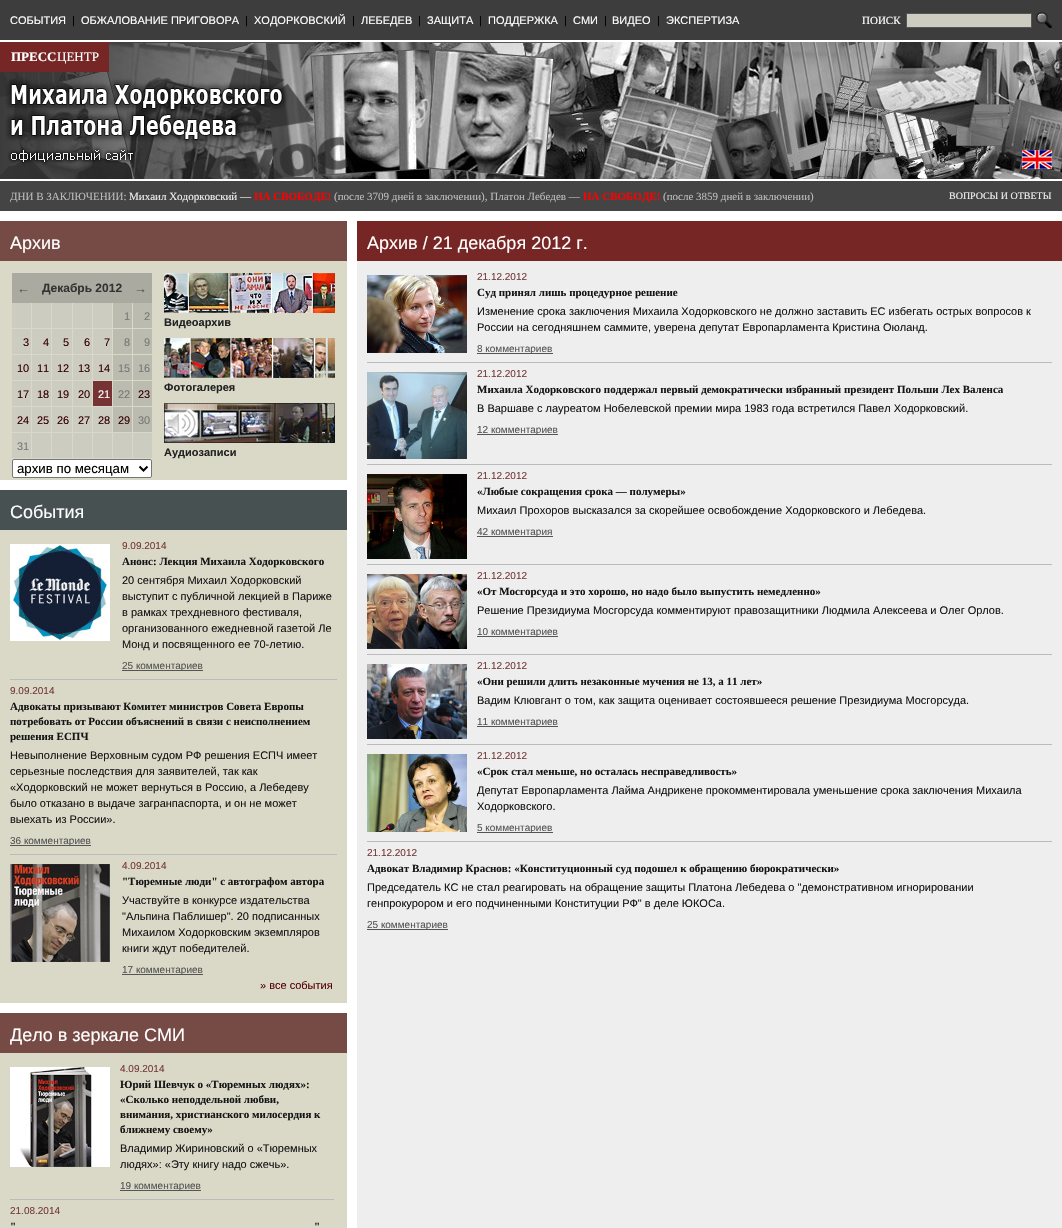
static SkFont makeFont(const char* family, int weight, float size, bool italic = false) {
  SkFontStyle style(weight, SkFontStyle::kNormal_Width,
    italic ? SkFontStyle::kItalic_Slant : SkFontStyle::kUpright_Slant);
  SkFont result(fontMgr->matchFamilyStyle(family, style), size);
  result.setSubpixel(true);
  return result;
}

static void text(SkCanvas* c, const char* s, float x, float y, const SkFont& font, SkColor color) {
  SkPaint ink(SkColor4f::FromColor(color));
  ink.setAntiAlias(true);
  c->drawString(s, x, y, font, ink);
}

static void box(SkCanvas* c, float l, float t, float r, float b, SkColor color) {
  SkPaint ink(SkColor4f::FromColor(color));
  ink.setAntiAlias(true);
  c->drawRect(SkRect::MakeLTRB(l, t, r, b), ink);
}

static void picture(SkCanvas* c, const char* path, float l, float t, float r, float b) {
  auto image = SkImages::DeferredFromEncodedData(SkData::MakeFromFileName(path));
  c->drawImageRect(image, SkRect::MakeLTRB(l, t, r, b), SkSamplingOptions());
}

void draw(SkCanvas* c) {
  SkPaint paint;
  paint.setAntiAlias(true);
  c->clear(0xffffffff);
  box(c, 0, 0, 1062, 40, 0xff3d3d3d);
  SkFont face1 = makeFont("Liberation Sans", 400, 11);
  text(c, "СОБЫТИЯ", 10, 24, face1, 0xffffffff);
  text(c, "|", 72, 24, face1, 0xff000000);
  text(c, "ОБЖАЛОВАНИЕ ПРИГОВОРА", 81, 24, face1, 0xffffffff);
  text(c, "|", 245, 24, face1, 0xff000000);
  text(c, "ХОДОРКОВСКИЙ", 254, 24, face1, 0xffffffff);
  text(c, "|", 352, 24, face1, 0xff000000);
  text(c, "ЛЕБЕДЕВ", 361, 24, face1, 0xffffffff);
  text(c, "|", 418, 24, face1, 0xff000000);
  text(c, "ЗАЩИТА", 427, 24, face1, 0xffffffff);
  text(c, "|", 479, 24, face1, 0xff000000);
  text(c, "ПОДДЕРЖКА", 488, 24, face1, 0xffffffff);
  text(c, "|", 564, 24, face1, 0xff000000);
  text(c, "СМИ", 573, 24, face1, 0xffffffff);
  text(c, "|", 604, 24, face1, 0xff000000);
  text(c, "ВИДЕО", 612, 24, face1, 0xffffffff);
  text(c, "|", 657, 24, face1, 0xff000000);
  text(c, "ЭКСПЕРТИЗА", 666, 24, face1, 0xffffffff);
  SkFont face2 = makeFont("Liberation Serif", 400, 11);
  text(c, "ПОИСК", 862, 24, face2, 0xffffffff);
  paint.setColor(0xffccccc0);
  c->drawRect(SkRect::MakeLTRB(906.5f, 13.5f, 1031.5f, 27.5f), paint);
  paint.setStyle(SkPaint::kStroke_Style);
  paint.setStrokeWidth(1);
  paint.setColor(0xff555555);
  c->drawRect(SkRect::MakeLTRB(906.5f, 13.5f, 1031.5f, 27.5f), paint);
  picture(c, "img_01.png", 1036, 12, 1052, 28);
  picture(c, "img_02.png", 0, 42, 1062, 179);
  box(c, 0, 42, 109, 72, 0xff772626);
  SkFont face3 = makeFont("Liberation Serif", 700, 13);
  text(c, "ПРЕСС", 11, 61, face3, 0xffffffff);
  SkFont face4 = makeFont("Liberation Serif", 400, 13);
  text(c, "ЦЕНТР", 57, 61, face4, 0xffffffff);
  picture(c, "img_03.png", 1022, 150, 1052, 169);
  box(c, 0, 181, 1062, 211, 0xff444444);
  text(c, "ДНИ В ЗАКЛЮЧЕНИИ:", 10, 200, face2, 0xffbbbbbb);
  text(c, "Михаил Ходорковский —", 129, 200, face2, 0xffeeeeee);
  SkFont face5 = makeFont("Liberation Serif", 700, 11);
  text(c, "НА СВОБОДЕ!", 254, 200, face5, 0xffff0000);
  text(c, "(после 3709 дней в заключении), Платон Лебедев —", 334, 200, face2, 0xffbbbbbb);
  text(c, "НА СВОБОДЕ!", 583, 200, face5, 0xffff0000);
  text(c, "(после 3859 дней в заключении)", 663, 200, face2, 0xffbbbbbb);
  SkFont face6 = makeFont("Liberation Serif", 400, 10);
  text(c, "ВОПРОСЫ И ОТВЕТЫ", 949, 199, face6, 0xffeeeeee);
  box(c, 0, 221, 347, 261, 0xff774b45);
  SkFont face7 = makeFont("Liberation Sans", 400, 18);
  text(c, "Архив", 10, 249, face7, 0xffffffff);
  box(c, 0, 261, 347, 480, 0xffdad9c8);
  box(c, 12, 273, 152, 303, 0xffaaaaa0);
  SkFont face8 = makeFont("Liberation Sans", 700, 13);
  text(c, "←", 17, 293, face8, 0xff555555);
  SkFont face9 = makeFont("Liberation Sans", 700, 12);
  text(c, "Декабрь 2012", 42, 292, face9, 0xff333333);
  text(c, "→", 134, 293, face8, 0xff555555);
  box(c, 12, 303, 31, 328, 0xffccccc0);
  box(c, 32, 303, 51, 328, 0xffccccc0);
  box(c, 52, 303, 72, 328, 0xffccccc0);
  box(c, 73, 303, 92, 328, 0xffccccc0);
  box(c, 93, 303, 112, 328, 0xffccccc0);
  box(c, 113, 303, 132, 328, 0xffbbbbb0);
  text(c, "1", 124, 320, face1, 0xff777777);
  box(c, 133, 303, 152, 328, 0xffbbbbb0);
  text(c, "2", 144, 320, face1, 0xff777777);
  box(c, 12, 329, 31, 354, 0xffccccc0);
  text(c, "3", 23, 346, face1, 0xff330000);
  box(c, 32, 329, 51, 354, 0xffccccc0);
  text(c, "4", 43, 346, face1, 0xff330000);
  box(c, 52, 329, 72, 354, 0xffccccc0);
  text(c, "5", 63, 346, face1, 0xff330000);
  box(c, 73, 329, 92, 354, 0xffccccc0);
  text(c, "6", 84, 346, face1, 0xff330000);
  box(c, 93, 329, 112, 354, 0xffccccc0);
  text(c, "7", 104, 346, face1, 0xff330000);
  box(c, 113, 329, 132, 354, 0xffbbbbb0);
  text(c, "8", 124, 346, face1, 0xff777777);
  box(c, 133, 329, 152, 354, 0xffbbbbb0);
  text(c, "9", 144, 346, face1, 0xff777777);
  box(c, 12, 355, 31, 380, 0xffccccc0);
  text(c, "10", 17, 372, face1, 0xff330000);
  box(c, 32, 355, 51, 380, 0xffccccc0);
  text(c, "11", 37, 372, face1, 0xff330000);
  box(c, 52, 355, 72, 380, 0xffccccc0);
  text(c, "12", 57, 372, face1, 0xff330000);
  box(c, 73, 355, 92, 380, 0xffccccc0);
  text(c, "13", 78, 372, face1, 0xff330000);
  box(c, 93, 355, 112, 380, 0xffccccc0);
  text(c, "14", 98, 372, face1, 0xff330000);
  box(c, 113, 355, 132, 380, 0xffbbbbb0);
  text(c, "15", 118, 372, face1, 0xff777777);
  box(c, 133, 355, 152, 380, 0xffbbbbb0);
  text(c, "16", 138, 372, face1, 0xff777777);
  box(c, 12, 381, 31, 406, 0xffccccc0);
  text(c, "17", 17, 398, face1, 0xff330000);
  box(c, 32, 381, 51, 406, 0xffccccc0);
  text(c, "18", 37, 398, face1, 0xff330000);
  box(c, 52, 381, 72, 406, 0xffccccc0);
  text(c, "19", 57, 398, face1, 0xff330000);
  box(c, 73, 381, 92, 406, 0xffccccc0);
  text(c, "20", 78, 398, face1, 0xff330000);
  box(c, 93, 381, 112, 406, 0xff773333);
  text(c, "21", 98, 398, face1, 0xffffffff);
  box(c, 113, 381, 132, 406, 0xffbbbbb0);
  text(c, "22", 118, 398, face1, 0xff777777);
  box(c, 133, 381, 152, 406, 0xffbbbbb0);
  text(c, "23", 138, 398, face1, 0xff330000);
  box(c, 12, 407, 31, 432, 0xffccccc0);
  text(c, "24", 17, 424, face1, 0xff330000);
  box(c, 32, 407, 51, 432, 0xffccccc0);
  text(c, "25", 37, 424, face1, 0xff330000);
  box(c, 52, 407, 72, 432, 0xffccccc0);
  text(c, "26", 57, 424, face1, 0xff330000);
  box(c, 73, 407, 92, 432, 0xffccccc0);
  text(c, "27", 78, 424, face1, 0xff330000);
  box(c, 93, 407, 112, 432, 0xffccccc0);
  text(c, "28", 98, 424, face1, 0xff330000);
  box(c, 113, 407, 132, 432, 0xffbbbbb0);
  text(c, "29", 118, 424, face1, 0xff330000);
  box(c, 133, 407, 152, 432, 0xffbbbbb0);
  text(c, "30", 138, 424, face1, 0xff777777);
  box(c, 12, 433, 31, 458, 0xffccccc0);
  text(c, "31", 17, 450, face1, 0xff777777);
  box(c, 32, 433, 51, 458, 0xffccccc0);
  box(c, 52, 433, 72, 458, 0xffccccc0);
  box(c, 73, 433, 92, 458, 0xffccccc0);
  box(c, 93, 433, 112, 458, 0xffccccc0);
  box(c, 113, 433, 132, 458, 0xffccccc0);
  box(c, 133, 433, 152, 458, 0xffccccc0);
  paint.setStyle(SkPaint::kFill_Style);
  paint.setColor(0xffffffff);
  c->drawRoundRect(SkRect::MakeLTRB(12.5f, 459.5f, 151.5f, 477.5f), 1.5f, 1.5f, paint);
  paint.setStyle(SkPaint::kStroke_Style);
  paint.setColor(0xff767676);
  c->drawRoundRect(SkRect::MakeLTRB(12.5f, 459.5f, 151.5f, 477.5f), 1.5f, 1.5f, paint);
  paint.setStrokeWidth(2);
  paint.setColor(0xff000000);
  c->drawPath(SkPathBuilder().moveTo(139.5f, 466.5f).lineTo(143.5f, 470.5f).lineTo(147.5f, 466.5f).detach(), paint);
  SkFont face10 = makeFont("Liberation Sans", 400, 13.25f);
  text(c, "архив по месяцам", 17, 473, face10, 0xff000000);
  picture(c, "img_04.png", 164, 273, 335, 313);
  SkFont face11 = makeFont("Liberation Sans", 700, 11);
  text(c, "Видеоархив", 164, 326, face11, 0xff222222);
  picture(c, "img_05.png", 164, 338, 335, 378);
  text(c, "Фотогалерея", 164, 391, face11, 0xff222222);
  picture(c, "img_06.png", 164, 403, 335, 443);
  text(c, "Аудиозаписи", 164, 456, face11, 0xff222222);
  box(c, 0, 490, 347, 530, 0xff475152);
  text(c, "События", 10, 518, face7, 0xffffffff);
  box(c, 0, 530, 347, 1003, 0xffdad9c8);
  picture(c, "img_07.png", 10, 544, 110, 641);
  SkFont face12 = makeFont("Liberation Sans", 400, 10);
  text(c, "9.09.2014", 122, 549, face12, 0xff763c39);
  text(c, "Анонс: Лекция Михаила Ходорковского", 122, 565, face5, 0xff151515);
  text(c, "20 сентября Михаил Ходорковский", 122, 584, face1, 0xff151515);
  text(c, "выступит с публичной лекцией в Париже", 122, 600, face1, 0xff151515);
  text(c, "в рамках трехдневного фестиваля,", 122, 616, face1, 0xff151515);
  text(c, "организованного ежедневной газетой Ле", 122, 632, face1, 0xff151515);
  text(c, "Монд и посвященного ее 70-летию.", 122, 648, face1, 0xff151515);
  box(c, 122, 670, 203, 671, 0xff555555);
  text(c, "25 комментариев", 122, 669, face12, 0xff555555);
  box(c, 10, 679, 337, 680, 0xffbbbbbb);
  text(c, "9.09.2014", 10, 694, face12, 0xff763c39);
  text(c, "Адвокаты призывают Комитет министров Совета Европы", 10, 710, face5, 0xff151515);
  text(c, "потребовать от России объяснений в связи с неисполнением", 10, 725, face5, 0xff151515);
  text(c, "решения ЕСПЧ", 10, 740, face5, 0xff151515);
  text(c, "Невыполнение Верховным судом РФ решения ЕСПЧ имеет", 10, 759, face1, 0xff151515);
  text(c, "серьезные последствия для заявителей, так как", 10, 775, face1, 0xff151515);
  text(c, "«Ходорковский не может вернуться в Россию, а Лебедеву", 10, 791, face1, 0xff151515);
  text(c, "было отказано в выдаче загранпаспорта, и он не может", 10, 807, face1, 0xff151515);
  text(c, "выехать из России».", 10, 823, face1, 0xff151515);
  box(c, 10, 845, 91, 846, 0xff555555);
  text(c, "36 комментариев", 10, 844, face12, 0xff555555);
  box(c, 10, 854, 337, 855, 0xffbbbbbb);
  picture(c, "img_08.png", 10, 864, 110, 962);
  text(c, "4.09.2014", 122, 869, face12, 0xff763c39);
  text(c, "\"Тюремные люди\" с автографом автора", 122, 885, face5, 0xff151515);
  text(c, "Участвуйте в конкурсе издательства", 122, 904, face1, 0xff151515);
  text(c, "\"Альпина Паблишер\". 20 подписанных", 122, 920, face1, 0xff151515);
  text(c, "Михаилом Ходорковским экземпляров", 122, 936, face1, 0xff151515);
  text(c, "книги ждут победителей.", 122, 952, face1, 0xff151515);
  box(c, 122, 974, 203, 975, 0xff555555);
  text(c, "17 комментариев", 122, 973, face12, 0xff555555);
  text(c, "» все события", 260, 989, face1, 0xff550000);
  box(c, 0, 1013, 347, 1053, 0xff774b45);
  text(c, "Дело в зеркале СМИ", 10, 1041, face7, 0xffffffff);
  box(c, 0, 1053, 347, 1228, 0xffdad9c8);
  picture(c, "img_09.png", 10, 1067, 110, 1167);
  text(c, "4.09.2014", 120, 1072, face12, 0xff763c39);
  text(c, "Юрий Шевчук о «Тюремных людях»:", 120, 1088, face5, 0xff151515);
  text(c, "«Сколько неподдельной любви,", 120, 1103, face5, 0xff151515);
  text(c, "внимания, христианского милосердия к", 120, 1118, face5, 0xff151515);
  text(c, "ближнему своему»", 120, 1133, face5, 0xff151515);
  text(c, "Владимир Жириновский о «Тюремных", 120, 1152, face1, 0xff151515);
  text(c, "людях»: «Эту книгу надо сжечь».", 120, 1168, face1, 0xff151515);
  box(c, 120, 1190, 201, 1191, 0xff555555);
  text(c, "19 комментариев", 120, 1189, face12, 0xff555555);
  box(c, 10, 1199, 334, 1200, 0xffbbbbbb);
  text(c, "21.08.2014", 10, 1214, face12, 0xff763c39);
  text(c, "\"", 10, 1230, face5, 0xff151515);
  text(c, "\"", 314, 1230, face5, 0xff151515);
  box(c, 357, 261, 1062, 1228, 0xffeeeeee);
  box(c, 357, 221, 1062, 261, 0xff772626);
  text(c, "Архив / 21 декабря 2012 г.", 367, 249, face7, 0xffffffff);
  picture(c, "img_10.png", 367, 275, 467, 353);
  text(c, "21.12.2012", 477, 280, face12, 0xff763c39);
  text(c, "Суд принял лишь процедурное решение", 477, 296, face5, 0xff151515);
  text(c, "Изменение срока заключения Михаила Ходорковского не должно заставить ЕС избегать острых вопросов к", 477, 315, face1, 0xff151515);
  text(c, "России на сегодняшнем саммите, уверена депутат Европарламента Кристина Оюланд.", 477, 331, face1, 0xff151515);
  box(c, 477, 353, 553, 354, 0xff555555);
  text(c, "8 комментариев", 477, 352, face12, 0xff555555);
  box(c, 367, 362, 1052, 363, 0xffbbbbbb);
  picture(c, "img_11.png", 367, 372, 467, 459);
  text(c, "21.12.2012", 477, 377, face12, 0xff763c39);
  text(c, "Михаила Ходорковского поддержал первый демократически избранный президент Польши Лех Валенса", 477, 393, face5, 0xff151515);
  text(c, "В Варшаве с лауреатом Нобелевской премии мира 1983 года встретился Павел Ходорковский.", 477, 412, face1, 0xff151515);
  box(c, 477, 434, 558, 435, 0xff555555);
  text(c, "12 комментариев", 477, 433, face12, 0xff555555);
  box(c, 367, 464, 1052, 465, 0xffbbbbbb);
  picture(c, "img_12.png", 367, 474, 467, 559);
  text(c, "21.12.2012", 477, 479, face12, 0xff763c39);
  text(c, "«Любые сокращения срока — полумеры»", 477, 495, face5, 0xff151515);
  text(c, "Михаил Прохоров высказался за скорейшее освобождение Ходорковского и Лебедева.", 477, 514, face1, 0xff151515);
  box(c, 477, 536, 553, 537, 0xff555555);
  text(c, "42 комментария", 477, 535, face12, 0xff555555);
  box(c, 367, 564, 1052, 565, 0xffbbbbbb);
  picture(c, "img_13.png", 367, 574, 467, 649);
  text(c, "21.12.2012", 477, 579, face12, 0xff763c39);
  text(c, "«От Мосгорсуда и это хорошо, но надо было выпустить немедленно»", 477, 595, face5, 0xff151515);
  text(c, "Решение Президиума Мосгорсуда комментируют правозащитники Людмила Алексеева и Олег Орлов.", 477, 614, face1, 0xff151515);
  box(c, 477, 636, 558, 637, 0xff555555);
  text(c, "10 комментариев", 477, 635, face12, 0xff555555);
  box(c, 367, 654, 1052, 655, 0xffbbbbbb);
  picture(c, "img_14.png", 367, 664, 467, 739);
  text(c, "21.12.2012", 477, 669, face12, 0xff763c39);
  text(c, "«Они решили длить незаконные мучения не 13, а 11 лет»", 477, 685, face5, 0xff151515);
  text(c, "Вадим Клювгант о том, как защита оценивает состоявшееся решение Президиума Мосгорсуда.", 477, 704, face1, 0xff151515);
  box(c, 477, 726, 558, 727, 0xff555555);
  text(c, "11 комментариев", 477, 725, face12, 0xff555555);
  box(c, 367, 744, 1052, 745, 0xffbbbbbb);
  picture(c, "img_15.png", 367, 754, 467, 832);
  text(c, "21.12.2012", 477, 759, face12, 0xff763c39);
  text(c, "«Срок стал меньше, но осталась несправедливость»", 477, 775, face5, 0xff151515);
  text(c, "Депутат Европарламента Лайма Андрикене прокомментировала уменьшение срока заключения Михаила", 477, 794, face1, 0xff151515);
  text(c, "Ходорковского.", 477, 810, face1, 0xff151515);
  box(c, 477, 832, 553, 833, 0xff555555);
  text(c, "5 комментариев", 477, 831, face12, 0xff555555);
  box(c, 367, 841, 1052, 842, 0xffbbbbbb);
  text(c, "21.12.2012", 367, 856, face12, 0xff763c39);
  text(c, "Адвокат Владимир Краснов: «Конституционный суд подошел к обращению бюрократически»", 367, 872, face5, 0xff151515);
  text(c, "Председатель КС не стал реагировать на обращение защиты Платона Лебедева о \"демонстративном игнорировании", 367, 891, face1, 0xff151515);
  text(c, "генпрокурором и его подчиненными Конституции РФ\" в деле ЮКОСа.", 367, 907, face1, 0xff151515);
  box(c, 367, 929, 448, 930, 0xff555555);
  text(c, "25 комментариев", 367, 928, face12, 0xff555555);
}
